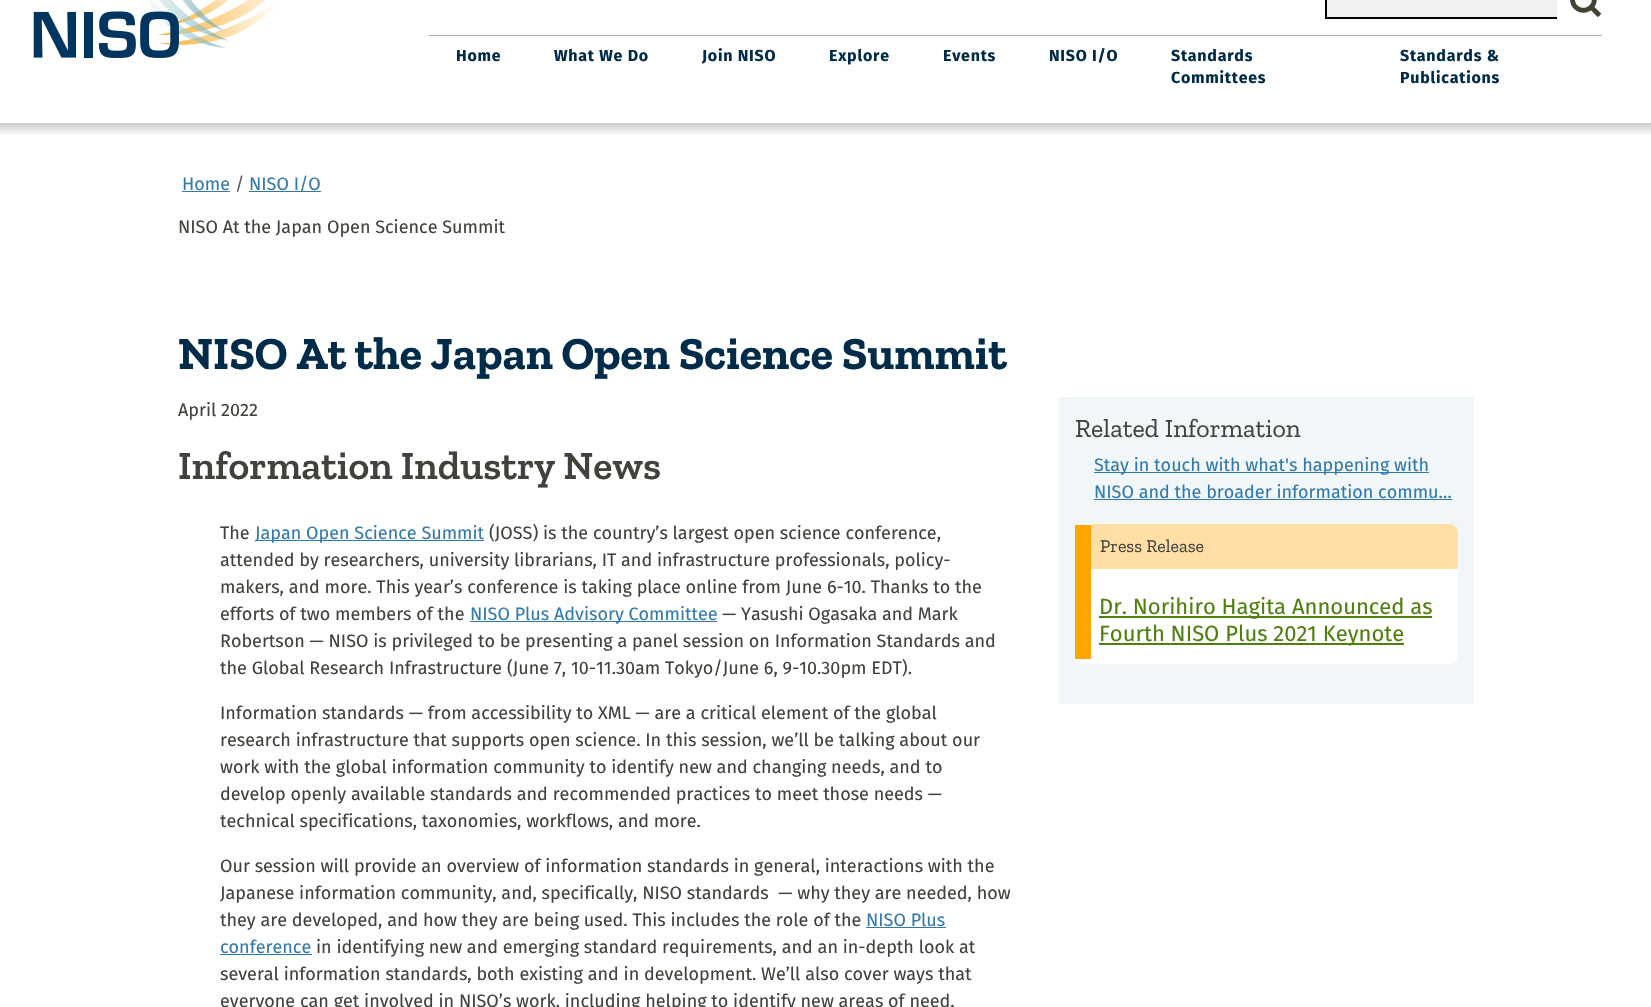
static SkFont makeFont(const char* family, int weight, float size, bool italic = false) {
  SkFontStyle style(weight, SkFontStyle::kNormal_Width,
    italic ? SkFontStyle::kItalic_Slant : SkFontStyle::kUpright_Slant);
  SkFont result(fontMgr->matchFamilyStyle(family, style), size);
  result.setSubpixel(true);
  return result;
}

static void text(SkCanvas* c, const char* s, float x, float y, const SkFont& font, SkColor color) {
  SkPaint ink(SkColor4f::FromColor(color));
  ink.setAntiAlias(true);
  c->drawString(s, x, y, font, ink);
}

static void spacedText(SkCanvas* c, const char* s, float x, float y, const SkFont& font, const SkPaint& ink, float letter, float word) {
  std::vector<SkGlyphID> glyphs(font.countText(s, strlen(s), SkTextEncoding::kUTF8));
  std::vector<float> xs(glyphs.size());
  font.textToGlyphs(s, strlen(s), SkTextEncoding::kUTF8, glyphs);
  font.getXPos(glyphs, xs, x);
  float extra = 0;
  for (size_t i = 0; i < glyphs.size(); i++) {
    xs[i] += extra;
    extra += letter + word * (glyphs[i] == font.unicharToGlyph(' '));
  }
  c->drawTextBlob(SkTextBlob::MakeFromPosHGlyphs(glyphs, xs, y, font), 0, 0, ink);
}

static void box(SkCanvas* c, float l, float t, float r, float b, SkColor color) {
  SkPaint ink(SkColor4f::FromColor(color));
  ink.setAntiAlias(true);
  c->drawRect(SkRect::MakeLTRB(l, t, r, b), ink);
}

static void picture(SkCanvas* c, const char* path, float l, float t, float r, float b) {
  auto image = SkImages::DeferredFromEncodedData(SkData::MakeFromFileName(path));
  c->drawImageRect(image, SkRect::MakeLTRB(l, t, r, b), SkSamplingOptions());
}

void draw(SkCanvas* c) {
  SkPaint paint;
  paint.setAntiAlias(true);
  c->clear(0xffffffff);
  picture(c, "img_01.png", 33, 0, 275, 58);
  box(c, 429, 35, 1602, 36, 0xffb3b0b1);
  box(c, 1327, 0, 1557, 17, 0xfff2f2f2);
  box(c, 1325, 17, 1557, 19, 0xff000000);
  box(c, 1325, 0, 1327, 19, 0xff000000);
  picture(c, "img_02.png", 1570, 0, 1601, 17);
  SkFont face1 = makeFont("Fira Sans", 700, 16);
  paint.setColor(0xff002b49);
  spacedText(c, "Home", 456, 61, face1, paint, 0.75f, 0);
  spacedText(c, "What We Do", 554, 61, face1, paint, 0.75f, 0);
  spacedText(c, "Join NISO", 702, 61, face1, paint, 0.75f, 0);
  spacedText(c, "Explore", 829, 61, face1, paint, 0.75f, 0);
  spacedText(c, "Events", 943, 61, face1, paint, 0.75f, 0);
  spacedText(c, "NISO I/O", 1049, 61, face1, paint, 0.75f, 0);
  spacedText(c, "Standards", 1171, 61, face1, paint, 0.75f, 0);
  spacedText(c, "Committees", 1171, 83, face1, paint, 0.75f, 0);
  spacedText(c, "Standards &", 1400, 61, face1, paint, 0.75f, 0);
  spacedText(c, "Publications", 1400, 83, face1, paint, 0.75f, 0);
  {
    const SkColor colors[] = {0xffcccbcb, 0xffffffff};
    const float stops[] = {0, 1};
    const SkPoint ends[] = {{826, 123}, {826, 136}};
    paint.setShader(SkGradientShader::MakeLinear(ends, colors, stops, 2, SkTileMode::kClamp));
    paint.setAlpha(255);
  }
  c->drawRect(SkRect::MakeLTRB(0, 123, 1651, 135), paint);
  SkFont face2 = makeFont("Fira Sans", 400, 18);
  text(c, "Home", 182, 190, face2, 0xff3379ab);
  box(c, 182, 191, 230, 192, 0xff3379ab);
  text(c, "/", 235, 190, face2, 0xff595c5f);
  box(c, 249, 191, 321, 192, 0xff3379ab);
  text(c, "NISO I/O", 249, 190, face2, 0xff3379ab);
  text(c, "NISO At the Japan Open Science Summit", 178, 233, face2, 0xff42423c);
  SkFont face3 = makeFont("Zilla Slab", 700, 46);
  text(c, "NISO At the Japan Open Science Summit", 178, 369, face3, 0xff002b49);
  text(c, "April 2022", 178, 416, face2, 0xff42423c);
  SkFont face4 = makeFont("Zilla Slab", 600, 40);
  text(c, "Information Industry News", 178, 479, face4, 0xff42423c);
  text(c, "The", 220, 539, face2, 0xff42423c);
  box(c, 255, 540, 484, 541, 0xff3379ab);
  text(c, "Japan Open Science Summit", 255, 539, face2, 0xff3379ab);
  text(c, "(JOSS) is the country’s largest open science conference,", 489, 539, face2, 0xff42423c);
  text(c, "attended by researchers, university librarians, IT and infrastructure professionals, policy-", 220, 566, face2, 0xff42423c);
  text(c, "makers, and more. This year’s conference is taking place online from June 6-10. Thanks to the", 220, 593, face2, 0xff42423c);
  text(c, "efforts of two members of the", 220, 620, face2, 0xff42423c);
  box(c, 470, 621, 717, 622, 0xff3379ab);
  text(c, "NISO Plus Advisory Committee", 470, 620, face2, 0xff3379ab);
  text(c, "— Yasushi Ogasaka and Mark", 722, 620, face2, 0xff42423c);
  text(c, "Robertson — NISO is privileged to be presenting a panel session on Information Standards and", 220, 647, face2, 0xff42423c);
  text(c, "the Global Research Infrastructure (June 7, 10-11.30am Tokyo/June 6, 9-10.30pm EDT).", 220, 674, face2, 0xff42423c);
  text(c, "Information standards — from accessibility to XML — are a critical element of the global", 220, 719, face2, 0xff42423c);
  text(c, "research infrastructure that supports open science. In this session, we’ll be talking about our", 220, 746, face2, 0xff42423c);
  text(c, "work with the global information community to identify new and changing needs, and to", 220, 773, face2, 0xff42423c);
  text(c, "develop openly available standards and recommended practices to meet those needs —", 220, 800, face2, 0xff42423c);
  text(c, "technical specifications, taxonomies, workflows, and more.", 220, 827, face2, 0xff42423c);
  text(c, "Our session will provide an overview of information standards in general, interactions with the", 220, 872, face2, 0xff42423c);
  text(c, "Japanese information community, and, specifically, NISO standards  — why they are needed, how", 220, 899, face2, 0xff42423c);
  text(c, "they are developed, and how they are being used. This includes the role of the", 220, 926, face2, 0xff42423c);
  text(c, "NISO Plus", 866, 926, face2, 0xff3379ab);
  box(c, 866, 927, 946, 928, 0xff3379ab);
  text(c, "conference", 220, 953, face2, 0xff3379ab);
  box(c, 220, 954, 312, 955, 0xff3379ab);
  text(c, "in identifying new and emerging standard requirements, and an in-depth look at", 316, 953, face2, 0xff42423c);
  text(c, "several information standards, both existing and in development. We’ll also cover ways that", 220, 980, face2, 0xff42423c);
  text(c, "everyone can get involved in NISO’s work, including helping to identify new areas of need,", 220, 1007, face2, 0xff42423c);
  box(c, 1059, 397, 1474, 704, 0xfff1f6f9);
  SkFont face5 = makeFont("Zilla Slab", 400, 26);
  text(c, "Related Information", 1075, 437, face5, 0xff42423c);
  box(c, 1094, 472, 1429, 473, 0xff3379ab);
  text(c, "Stay in touch with what's happening with", 1094, 471, face2, 0xff3379ab);
  text(c, "NISO and the broader information commu…", 1094, 498, face2, 0xff3379ab);
  box(c, 1094, 499, 1452, 500, 0xff3379ab);
  paint.setShader(nullptr);
  paint.setColor(0xffffffff);
  c->drawPath(SkPathBuilder().moveTo(1077, 524).lineTo(1448, 524).cubicTo(1453.5f, 524, 1458, 528.5f, 1458, 534).lineTo(1458, 654).cubicTo(1458, 659.5f, 1453.5f, 664, 1448, 664).lineTo(1085, 664).cubicTo(1079.5f, 664, 1075, 659.5f, 1075, 654).lineTo(1075, 526).cubicTo(1075, 525, 1076, 524, 1077, 524).close().detach(), paint);
  box(c, 1075, 525, 1091, 659, 0xffffa400);
  paint.setColor(0xffffdfa6);
  c->drawPath(SkPathBuilder().moveTo(1091, 524).lineTo(1091, 569).lineTo(1458, 569).lineTo(1458, 534).cubicTo(1458, 528, 1454, 524, 1448, 524).close().detach(), paint);
  SkFont face6 = makeFont("Zilla Slab", 400, 18);
  text(c, "Press Release", 1100, 552, face6, 0xff42423c);
  box(c, 1099, 616, 1432, 618, 0xff4e800d);
  SkFont face7 = makeFont("Fira Sans", 400, 22);
  text(c, "Dr. Norihiro Hagita Announced as", 1099, 614, face7, 0xff4e800d);
  box(c, 1099, 643, 1404, 645, 0xff4e800d);
  text(c, "Fourth NISO Plus 2021 Keynote", 1099, 641, face7, 0xff4e800d);
}
